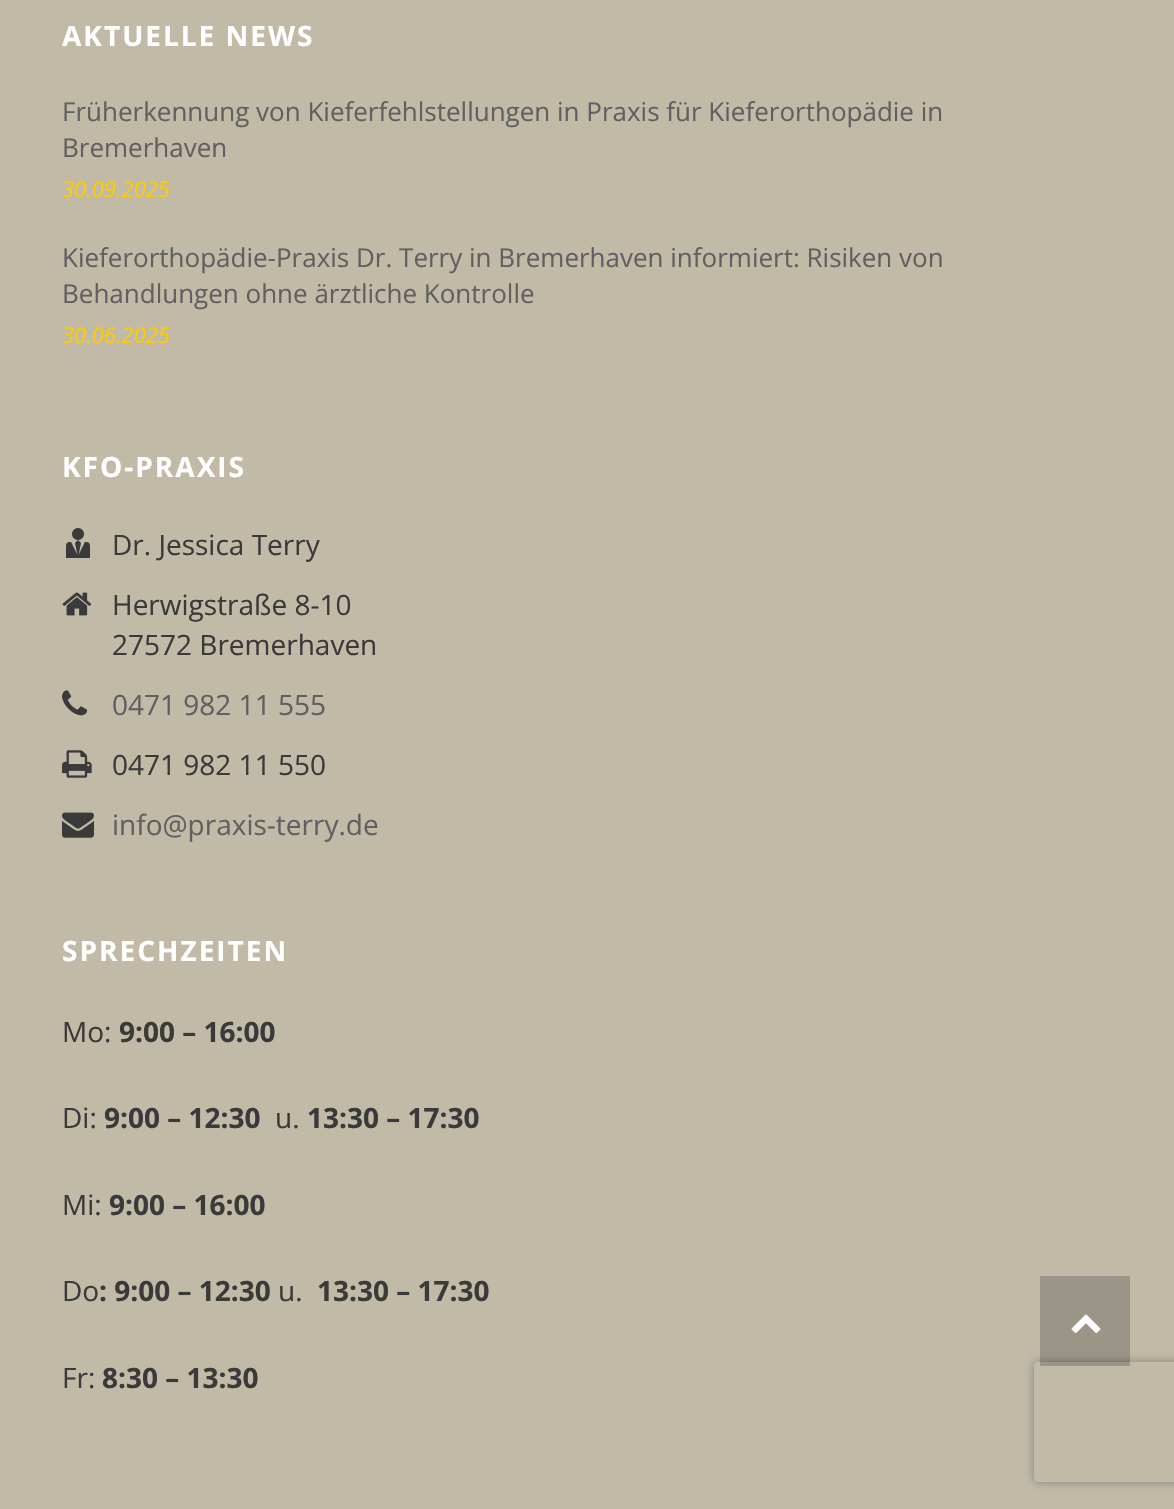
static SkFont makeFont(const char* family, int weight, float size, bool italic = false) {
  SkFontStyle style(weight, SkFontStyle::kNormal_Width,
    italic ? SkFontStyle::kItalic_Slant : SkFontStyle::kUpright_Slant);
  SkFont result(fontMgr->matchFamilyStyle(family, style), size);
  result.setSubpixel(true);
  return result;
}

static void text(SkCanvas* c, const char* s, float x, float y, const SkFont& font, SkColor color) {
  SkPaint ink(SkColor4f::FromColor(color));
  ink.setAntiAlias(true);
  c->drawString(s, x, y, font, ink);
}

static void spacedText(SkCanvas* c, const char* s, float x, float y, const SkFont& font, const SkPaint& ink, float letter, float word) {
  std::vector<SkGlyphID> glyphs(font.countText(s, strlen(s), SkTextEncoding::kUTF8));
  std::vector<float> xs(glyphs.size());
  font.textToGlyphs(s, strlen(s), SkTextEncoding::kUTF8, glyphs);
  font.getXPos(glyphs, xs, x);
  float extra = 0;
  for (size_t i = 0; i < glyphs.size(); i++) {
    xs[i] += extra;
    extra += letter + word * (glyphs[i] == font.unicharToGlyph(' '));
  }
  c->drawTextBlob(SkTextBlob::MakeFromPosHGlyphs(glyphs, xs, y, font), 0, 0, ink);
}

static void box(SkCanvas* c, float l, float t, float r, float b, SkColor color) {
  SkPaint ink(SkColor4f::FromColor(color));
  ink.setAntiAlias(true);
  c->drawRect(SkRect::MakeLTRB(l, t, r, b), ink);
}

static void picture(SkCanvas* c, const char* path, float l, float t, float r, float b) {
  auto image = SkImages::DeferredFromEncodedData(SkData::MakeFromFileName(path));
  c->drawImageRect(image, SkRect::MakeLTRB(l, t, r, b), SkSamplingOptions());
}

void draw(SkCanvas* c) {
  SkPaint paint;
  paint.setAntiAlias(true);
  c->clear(0xffc1baa7);
  SkFont face1 = makeFont("Open Sans", 700, 28);
  paint.setColor(0xffffffff);
  spacedText(c, "AKTUELLE NEWS", 62, 46, face1, paint, 2, 0);
  SkFont face2 = makeFont("Open Sans", 400, 26);
  text(c, "Früherkennung von Kieferfehlstellungen in Praxis für Kieferorthopädie in", 62, 121, face2, 0xff606060);
  text(c, "Bremerhaven", 62, 157, face2, 0xff606060);
  SkFont face3 = makeFont("Open Sans", 400, 22, true);
  text(c, "30.09.2025", 62, 197, face3, 0xffffcc00);
  text(c, "Kieferorthopädie-Praxis Dr. Terry in Bremerhaven informiert: Risiken von", 62, 267, face2, 0xff606060);
  text(c, "Behandlungen ohne ärztliche Kontrolle", 62, 303, face2, 0xff606060);
  text(c, "30.06.2025", 62, 343, face3, 0xffffcc00);
  spacedText(c, "KFO-PRAXIS", 62, 477, face1, paint, 2, 0);
  picture(c, "img_01.png", 66, 528, 90, 558);
  SkFont face4 = makeFont("Open Sans", 400, 28);
  text(c, "Dr. Jessica Terry", 112, 555, face4, 0xff3a3a3a);
  picture(c, "img_02.png", 62, 592, 92, 616);
  text(c, "Herwigstraße 8-10", 112, 615, face4, 0xff3a3a3a);
  text(c, "27572 Bremerhaven", 112, 655, face4, 0xff3a3a3a);
  picture(c, "img_03.png", 62, 690, 88, 716);
  text(c, "0471 982 11 555", 112, 715, face4, 0xff606060);
  picture(c, "img_04.png", 62, 750, 92, 778);
  text(c, "0471 982 11 550", 112, 775, face4, 0xff3a3a3a);
  picture(c, "img_05.png", 62, 812, 94, 838);
  text(c, "info@praxis-terry.de", 112, 835, face4, 0xff606060);
  spacedText(c, "SPRECHZEITEN", 62, 961, face1, paint, 2, 0);
  text(c, "Mo:", 62, 1042, face4, 0xff3a3a3a);
  text(c, "9:00 – 16:00", 119, 1042, face1, 0xff3a3a3a);
  text(c, "Di:", 62, 1128, face4, 0xff3a3a3a);
  text(c, "9:00 – 12:30", 104, 1128, face1, 0xff3a3a3a);
  text(c, "u.", 275, 1128, face4, 0xff3a3a3a);
  text(c, "13:30 – 17:30", 307, 1128, face1, 0xff3a3a3a);
  text(c, "Mi:", 62, 1215, face4, 0xff3a3a3a);
  text(c, "9:00 – 16:00", 109, 1215, face1, 0xff3a3a3a);
  text(c, "Do", 62, 1301, face4, 0xff3a3a3a);
  text(c, ": 9:00 – 12:30", 99, 1301, face1, 0xff3a3a3a);
  text(c, "u.", 278, 1301, face4, 0xff3a3a3a);
  text(c, "13:30 – 17:30", 317, 1301, face1, 0xff3a3a3a);
  text(c, "Fr:", 62, 1388, face4, 0xff3a3a3a);
  text(c, "8:30 – 13:30", 102, 1388, face1, 0xff3a3a3a);
  c->save();
  c->clipPath(SkPathBuilder(SkPathFillType::kEvenOdd).moveTo(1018, 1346).lineTo(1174, 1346).lineTo(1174, 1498).lineTo(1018, 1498).close().moveTo(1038, 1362).lineTo(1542, 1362).cubicTo(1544, 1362, 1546, 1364, 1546, 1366).lineTo(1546, 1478).cubicTo(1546, 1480, 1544, 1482, 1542, 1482).lineTo(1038, 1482).cubicTo(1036, 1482, 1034, 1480, 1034, 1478).lineTo(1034, 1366).cubicTo(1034, 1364, 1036, 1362, 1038, 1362).close().detach(), true);
  paint.setColor(0xff808080);
  paint.setMaskFilter(SkMaskFilter::MakeBlur(kNormal_SkBlurStyle, 5));
  c->drawRoundRect(SkRect::MakeLTRB(1034, 1362, 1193, 1482), 4, 4, paint);
  paint.setMaskFilter(nullptr);
  c->restore();
  box(c, 1040, 1276, 1130, 1366, 0x33000000);
  picture(c, "img_06.png", 1071, 1314, 1101, 1333);
}
